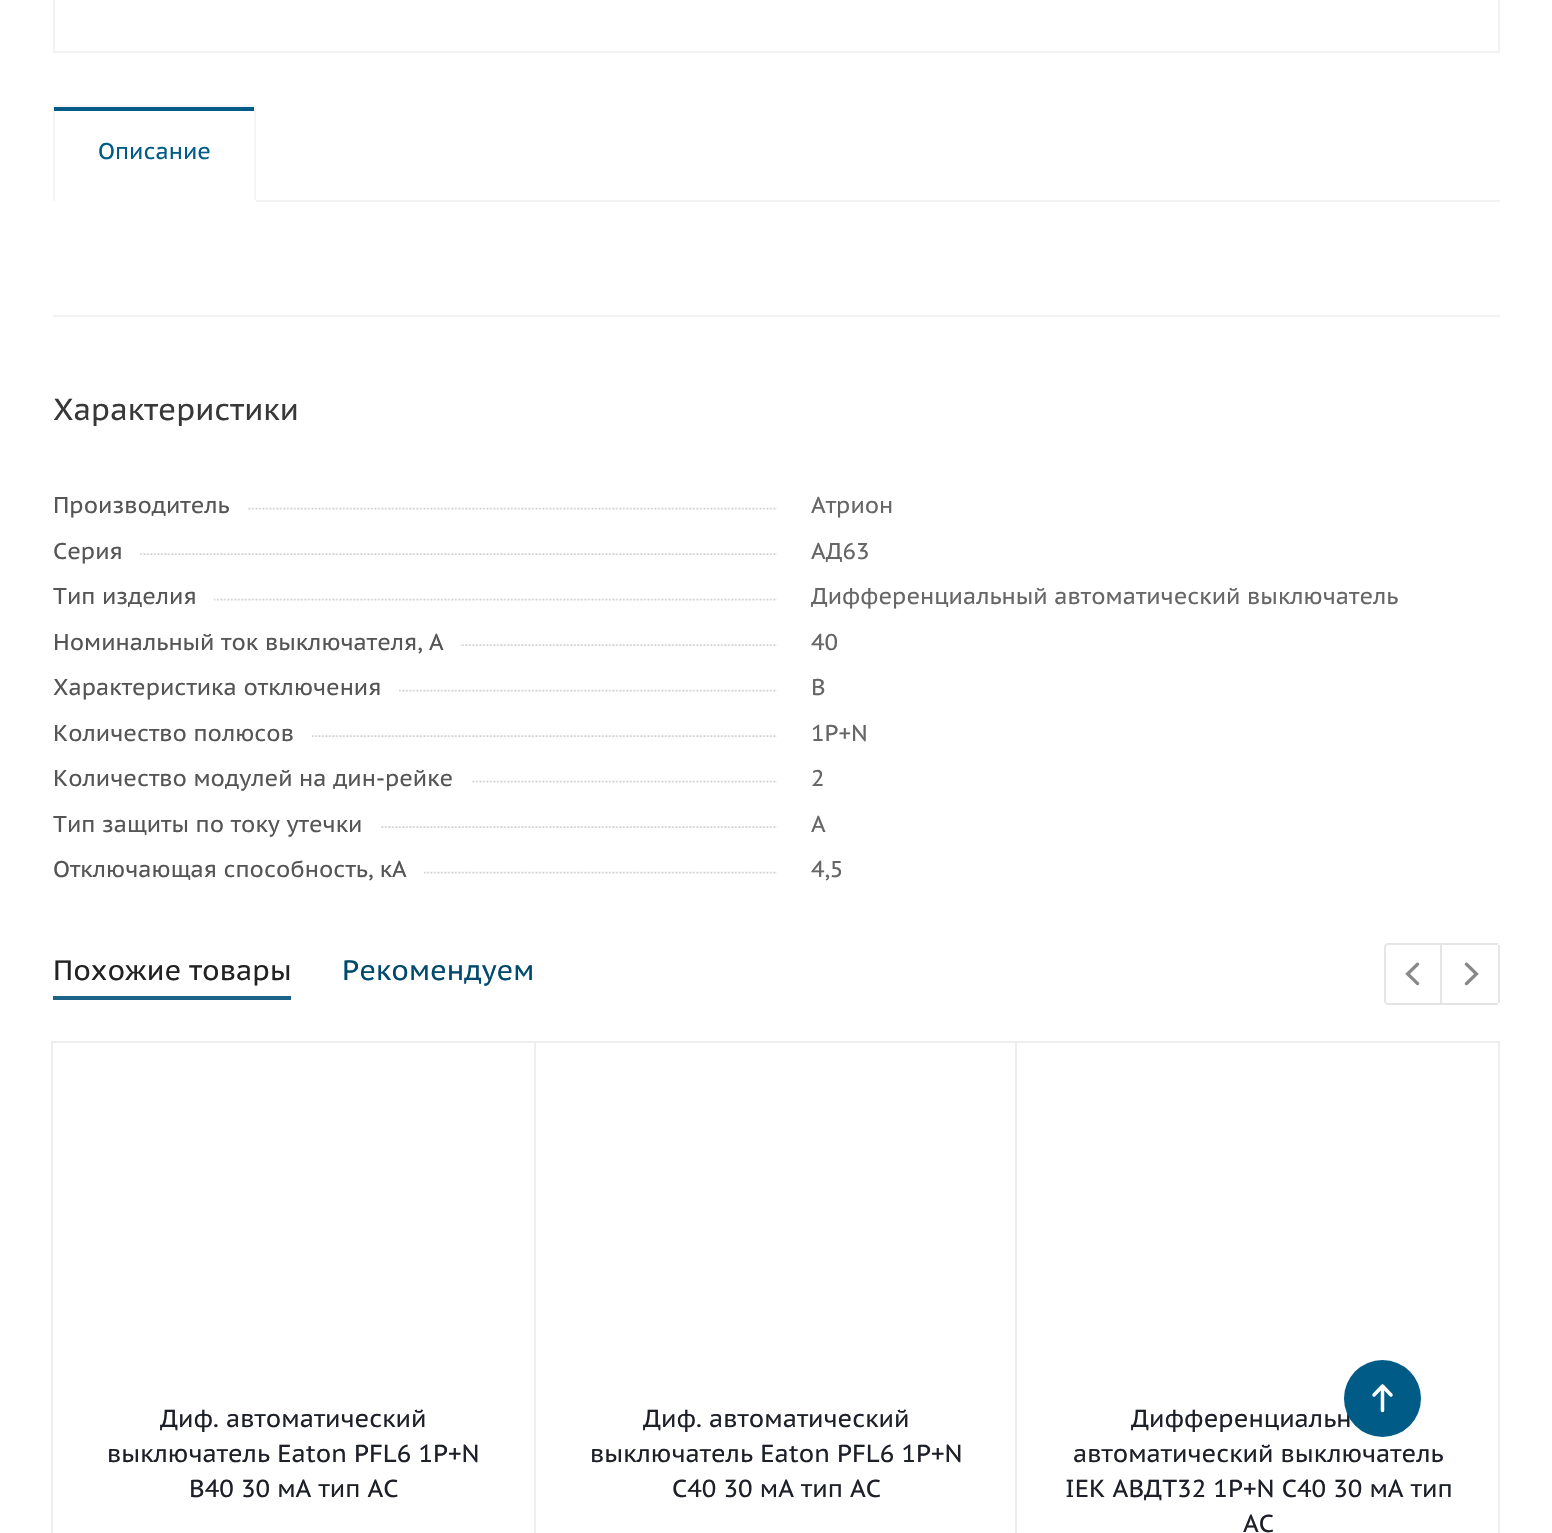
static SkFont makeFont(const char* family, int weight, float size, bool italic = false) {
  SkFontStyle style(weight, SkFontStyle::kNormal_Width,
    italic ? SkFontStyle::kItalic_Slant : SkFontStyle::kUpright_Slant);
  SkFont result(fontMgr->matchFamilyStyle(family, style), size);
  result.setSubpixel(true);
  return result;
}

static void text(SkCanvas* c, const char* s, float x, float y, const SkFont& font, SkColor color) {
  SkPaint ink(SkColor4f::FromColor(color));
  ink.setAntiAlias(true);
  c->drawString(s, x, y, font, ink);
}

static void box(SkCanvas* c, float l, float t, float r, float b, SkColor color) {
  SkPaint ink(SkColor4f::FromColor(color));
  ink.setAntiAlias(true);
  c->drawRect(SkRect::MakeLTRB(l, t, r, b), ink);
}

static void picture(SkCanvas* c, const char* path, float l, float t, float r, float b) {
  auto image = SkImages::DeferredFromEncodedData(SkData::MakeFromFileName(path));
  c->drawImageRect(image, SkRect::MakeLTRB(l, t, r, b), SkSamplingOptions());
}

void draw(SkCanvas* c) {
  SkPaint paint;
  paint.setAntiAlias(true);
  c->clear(0xffffffff);
  paint.setStyle(SkPaint::kStroke_Style);
  paint.setStrokeWidth(2);
  paint.setColor(0xfff2f2f2);
  c->drawRect(SkRect::MakeLTRB(54, -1, 1499, 52), paint);
  box(c, 256, 200, 1500, 202, 0xfff2f2f2);
  box(c, 53, 105, 256, 107, 0xfff5f5f5);
  box(c, 254, 105, 256, 201, 0xfff5f5f5);
  box(c, 254, 200, 256, 201, 0xffffffff);
  box(c, 53, 105, 55, 201, 0xfff5f5f5);
  box(c, 54, 107, 254, 111, 0xff005c86);
  SkFont face1 = makeFont("PT Sans Caption", 400, 22.75f);
  text(c, "Описание", 98, 159, face1, 0xff005c86);
  box(c, 53, 315, 1500, 317, 0xfff2f2f2);
  SkFont face2 = makeFont("PT Sans Caption", 400, 30.25f);
  text(c, "Характеристики", 53, 420, face2, 0xff383838);
  picture(c, "img_01.png", 247, 507, 777, 510);
  text(c, "Производитель", 53, 513, face1, 0xff555555);
  text(c, "Атрион", 811, 513, face1, 0xff666666);
  picture(c, "img_02.png", 140, 553, 777, 555);
  text(c, "Серия", 53, 559, face1, 0xff555555);
  text(c, "АД63", 811, 559, face1, 0xff666666);
  picture(c, "img_03.png", 214, 598, 777, 601);
  text(c, "Тип изделия", 53, 604, face1, 0xff555555);
  text(c, "Дифференциальный автоматический выключатель", 811, 604, face1, 0xff666666);
  picture(c, "img_04.png", 460, 644, 777, 646);
  text(c, "Номинальный ток выключателя, А", 53, 650, face1, 0xff555555);
  text(c, "40", 811, 650, face1, 0xff666666);
  picture(c, "img_05.png", 399, 689, 777, 692);
  text(c, "Характеристика отключения", 53, 695, face1, 0xff555555);
  text(c, "B", 811, 695, face1, 0xff666666);
  picture(c, "img_06.png", 312, 735, 777, 737);
  text(c, "Количество полюсов", 53, 741, face1, 0xff555555);
  text(c, "1P+N", 811, 741, face1, 0xff666666);
  picture(c, "img_07.png", 471, 780, 777, 783);
  text(c, "Количество модулей на дин-рейке", 53, 786, face1, 0xff555555);
  text(c, "2", 811, 786, face1, 0xff666666);
  picture(c, "img_08.png", 380, 826, 777, 828);
  text(c, "Тип защиты по току утечки", 53, 832, face1, 0xff555555);
  text(c, "A", 811, 832, face1, 0xff666666);
  picture(c, "img_09.png", 424, 871, 777, 874);
  text(c, "Отключающая способность, кА", 53, 877, face1, 0xff555555);
  text(c, "4,5", 811, 877, face1, 0xff666666);
  box(c, 53, 996, 291, 1000, 0xff1d6388);
  SkFont face3 = makeFont("PT Sans Caption", 400, 28);
  text(c, "Похожие товары", 53, 980, face3, 0xff222222);
  text(c, "Рекомендуем", 342, 980, face3, 0xff004a6d);
  paint.setColor(0xffe5e5e5);
  c->drawPath(SkPathBuilder().moveTo(1388, 944).lineTo(1441, 944).lineTo(1441, 1004).lineTo(1388, 1004).cubicTo(1386.5f, 1004, 1385, 1002.5f, 1385, 1001).lineTo(1385, 947).cubicTo(1385, 945.5f, 1386.5f, 944, 1388, 944).close().detach(), paint);
  picture(c, "img_10.png", 1405, 962, 1420, 986);
  box(c, 1442, 943, 1498, 945, 0xffe5e5e5);
  box(c, 1498, 945, 1500, 1003, 0xffe5e5e5);
  box(c, 1442, 1003, 1498, 1005, 0xffe5e5e5);
  picture(c, "img_11.png", 1464, 962, 1479, 986);
  paint.setColor(0xffeeeeee);
  c->drawRect(SkRect::MakeLTRB(52, 1042, 535, 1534), paint);
  c->drawRect(SkRect::MakeLTRB(535, 1042, 1016, 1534), paint);
  c->drawRect(SkRect::MakeLTRB(1016, 1042, 1499, 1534), paint);
  c->save();
  c->clipRect(SkRect::MakeLTRB(35, 1010, 1517, 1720));
  c->drawRect(SkRect::MakeLTRB(1499, 1042, 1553, 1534), paint);
  c->restore();
  box(c, 1500, 1041, 1517, 1043, 0xffffffff);
  SkFont face4 = makeFont("PT Sans Caption", 400, 24.5f);
  text(c, "Диф. автоматический", 160, 1427, face4, 0xff1d2029);
  text(c, "выключатель Eaton PFL6 1P+N", 107, 1462, face4, 0xff1d2029);
  text(c, "B40 30 мА тип AC", 189, 1497, face4, 0xff1d2029);
  text(c, "Диф. автоматический", 643, 1427, face4, 0xff1d2029);
  text(c, "выключатель Eaton PFL6 1P+N", 590, 1462, face4, 0xff1d2029);
  text(c, "C40 30 мА тип AC", 672, 1497, face4, 0xff1d2029);
  text(c, "Дифференциальн", 1131, 1427, face4, 0xff1d2029);
  text(c, "автоматический выключатель", 1073, 1462, face4, 0xff1d2029);
  text(c, "IEK АВДТ32 1P+N C40 30 мА тип", 1065, 1497, face4, 0xff1d2029);
  text(c, "AC", 1243, 1532, face4, 0xff1d2029);
  paint.setStyle(SkPaint::kFill_Style);
  paint.setColor(0xff005c86);
  c->drawCircle(1382.5f, 1398.5f, 38.5f, paint);
  paint.setStyle(SkPaint::kStroke_Style);
  paint.setStrokeWidth(3.5f);
  paint.setStrokeCap(SkPaint::kRound_Cap);
  paint.setStrokeJoin(SkPaint::kRound_Join);
  paint.setColor(0xffffffff);
  c->drawPath(SkPathBuilder().moveTo(1382.5f, 1386).lineTo(1382.5f, 1410.5f).moveTo(1374, 1395).lineTo(1382.5f, 1386).lineTo(1391, 1395).detach(), paint);
}
